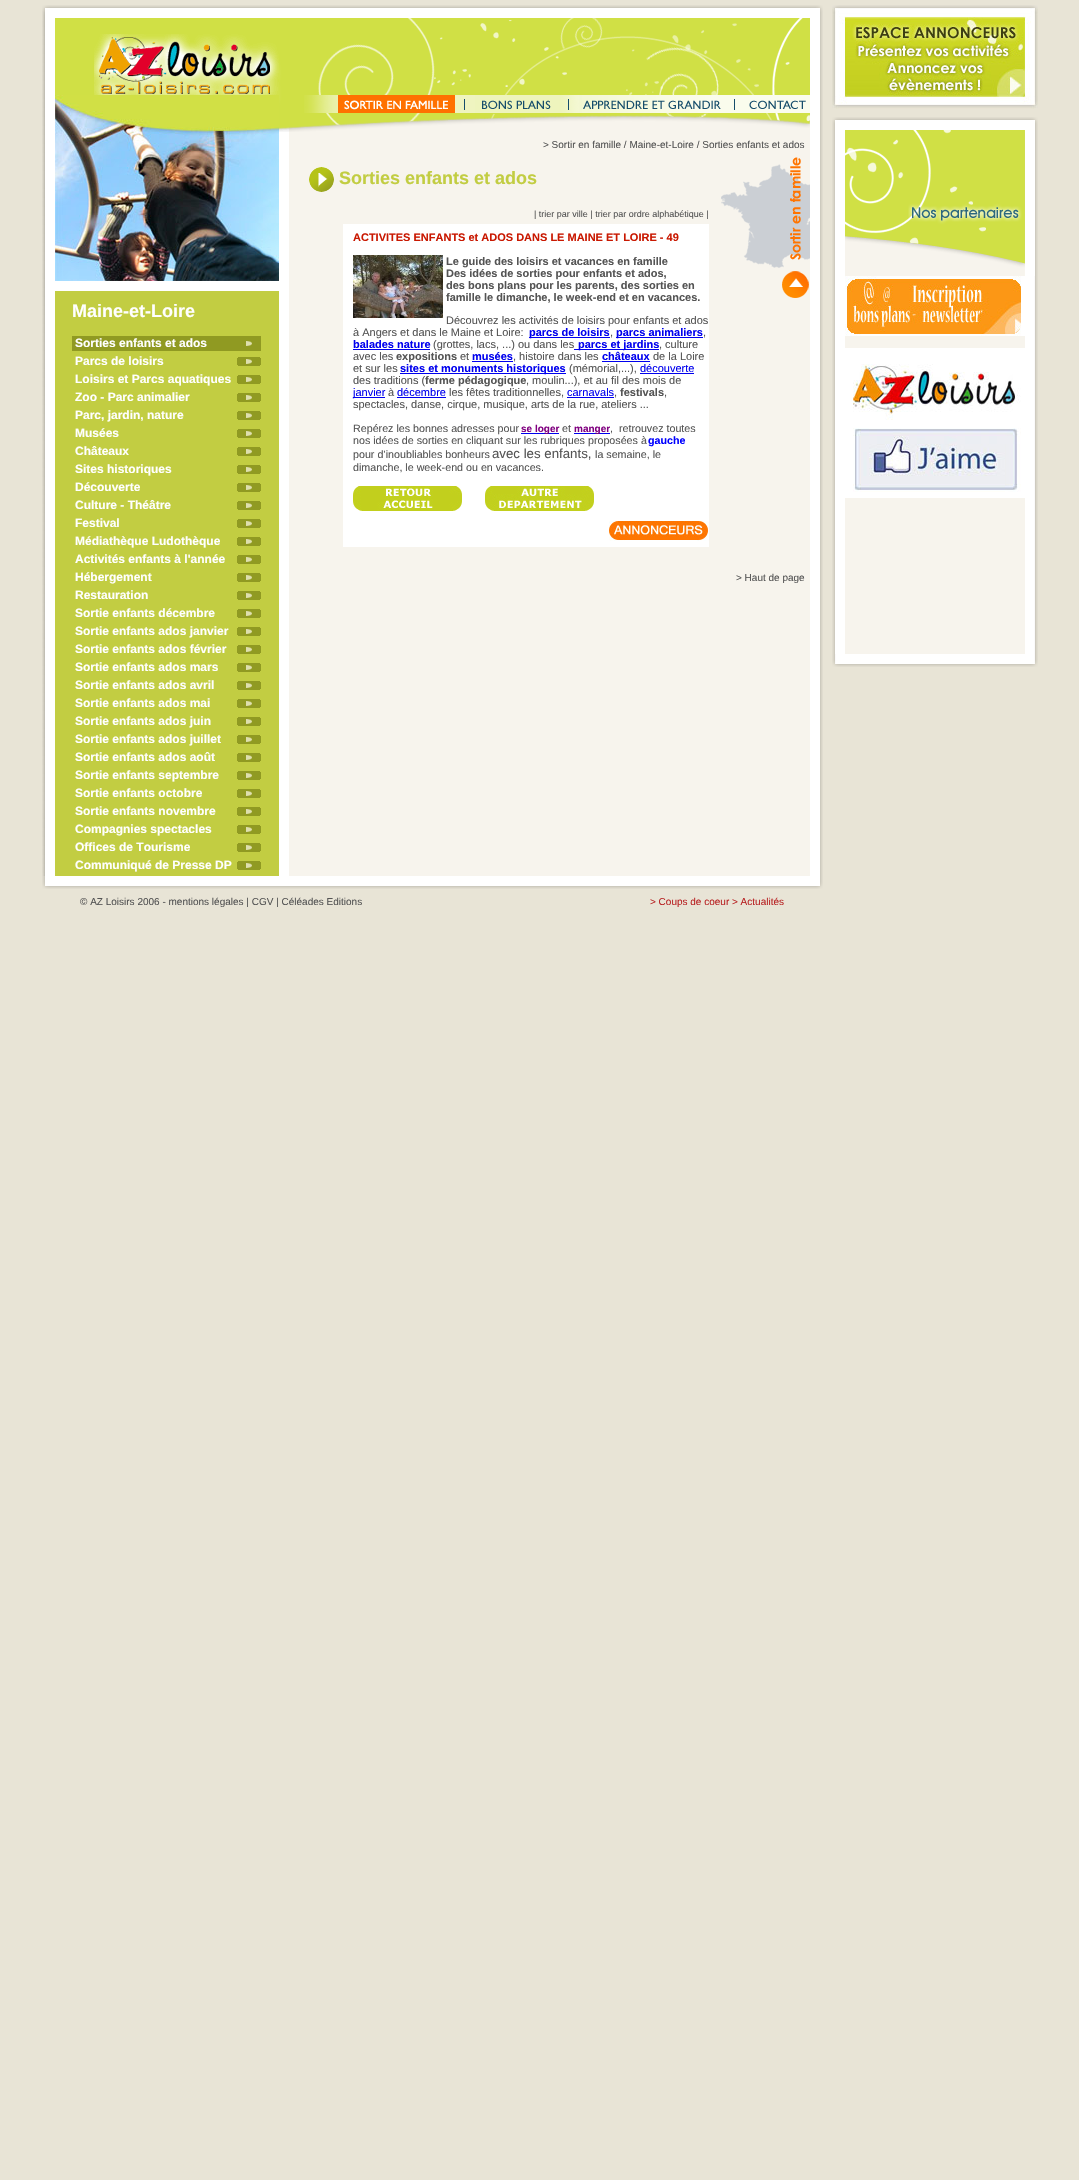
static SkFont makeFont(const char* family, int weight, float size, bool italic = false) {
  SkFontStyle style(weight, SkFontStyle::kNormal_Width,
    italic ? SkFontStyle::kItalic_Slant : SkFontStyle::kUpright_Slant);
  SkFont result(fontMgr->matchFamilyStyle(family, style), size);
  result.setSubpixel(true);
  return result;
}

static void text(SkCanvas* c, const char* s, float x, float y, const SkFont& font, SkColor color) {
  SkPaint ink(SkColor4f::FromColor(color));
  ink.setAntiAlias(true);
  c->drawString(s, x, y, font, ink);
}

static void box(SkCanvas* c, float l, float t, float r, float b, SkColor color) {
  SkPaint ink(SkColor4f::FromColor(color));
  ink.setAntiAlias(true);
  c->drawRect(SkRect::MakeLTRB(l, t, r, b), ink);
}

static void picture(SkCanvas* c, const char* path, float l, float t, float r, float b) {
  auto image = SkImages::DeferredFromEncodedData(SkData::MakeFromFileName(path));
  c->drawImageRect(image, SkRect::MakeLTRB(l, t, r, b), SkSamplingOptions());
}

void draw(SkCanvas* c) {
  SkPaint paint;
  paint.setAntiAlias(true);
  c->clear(0xffe8e4d6);
  picture(c, "img_01.png", 42, 5, 823, 18);
  picture(c, "img_02.png", 42, 18, 55, 876);
  box(c, 55, 18, 279, 95, 0xffd0e045);
  picture(c, "img_03.png", 94, 34, 279, 95);
  box(c, 803, 18, 810, 95, 0xffd0e045);
  picture(c, "img_04.png", 279, 18, 803, 95);
  box(c, 55, 291, 279, 876, 0xffc2cd42);
  picture(c, "img_05.png", 55, 95, 279, 281);
  box(c, 55, 281, 279, 291, 0xffffffff);
  SkFont face1 = makeFont("Liberation Sans", 700, 18);
  text(c, "Maine-et-Loire", 72, 317, face1, 0xffffffff);
  box(c, 72, 336, 261, 351, 0xff909a22);
  SkFont face2 = makeFont("Liberation Sans", 700, 12);
  text(c, "Sorties enfants et ados", 75, 347, face2, 0xffffffff);
  picture(c, "img_06.png", 246, 341, 252, 346);
  text(c, "Parcs de loisirs", 75, 365, face2, 0xffffffff);
  picture(c, "img_07.png", 237, 357, 261, 366);
  text(c, "Loisirs et Parcs aquatiques", 75, 383, face2, 0xffffffff);
  picture(c, "img_07.png", 237, 375, 261, 384);
  text(c, "Zoo - Parc animalier", 75, 401, face2, 0xffffffff);
  picture(c, "img_07.png", 237, 393, 261, 402);
  text(c, "Parc, jardin, nature", 75, 419, face2, 0xffffffff);
  picture(c, "img_07.png", 237, 411, 261, 420);
  text(c, "Musées", 75, 437, face2, 0xffffffff);
  picture(c, "img_07.png", 237, 429, 261, 438);
  text(c, "Châteaux", 75, 455, face2, 0xffffffff);
  picture(c, "img_07.png", 237, 447, 261, 456);
  text(c, "Sites historiques", 75, 473, face2, 0xffffffff);
  picture(c, "img_07.png", 237, 465, 261, 474);
  text(c, "Découverte", 75, 491, face2, 0xffffffff);
  picture(c, "img_07.png", 237, 483, 261, 492);
  text(c, "Culture - Théâtre", 75, 509, face2, 0xffffffff);
  picture(c, "img_07.png", 237, 501, 261, 510);
  text(c, "Festival", 75, 527, face2, 0xffffffff);
  picture(c, "img_07.png", 237, 519, 261, 528);
  text(c, "Médiathèque Ludothèque", 75, 545, face2, 0xffffffff);
  picture(c, "img_07.png", 237, 537, 261, 546);
  text(c, "Activités enfants à l'année", 75, 563, face2, 0xffffffff);
  picture(c, "img_07.png", 237, 555, 261, 564);
  text(c, "Hébergement", 75, 581, face2, 0xffffffff);
  picture(c, "img_07.png", 237, 573, 261, 582);
  text(c, "Restauration", 75, 599, face2, 0xffffffff);
  picture(c, "img_07.png", 237, 591, 261, 600);
  text(c, "Sortie enfants décembre", 75, 617, face2, 0xffffffff);
  picture(c, "img_07.png", 237, 609, 261, 618);
  text(c, "Sortie enfants ados janvier", 75, 635, face2, 0xffffffff);
  picture(c, "img_07.png", 237, 627, 261, 636);
  text(c, "Sortie enfants ados février", 75, 653, face2, 0xffffffff);
  picture(c, "img_07.png", 237, 645, 261, 654);
  text(c, "Sortie enfants ados mars", 75, 671, face2, 0xffffffff);
  picture(c, "img_07.png", 237, 663, 261, 672);
  text(c, "Sortie enfants ados avril", 75, 689, face2, 0xffffffff);
  picture(c, "img_07.png", 237, 681, 261, 690);
  text(c, "Sortie enfants ados mai", 75, 707, face2, 0xffffffff);
  picture(c, "img_07.png", 237, 699, 261, 708);
  text(c, "Sortie enfants ados juin", 75, 725, face2, 0xffffffff);
  picture(c, "img_07.png", 237, 717, 261, 726);
  text(c, "Sortie enfants ados juillet", 75, 743, face2, 0xffffffff);
  picture(c, "img_07.png", 237, 735, 261, 744);
  text(c, "Sortie enfants ados août", 75, 761, face2, 0xffffffff);
  picture(c, "img_07.png", 237, 753, 261, 762);
  text(c, "Sortie enfants septembre", 75, 779, face2, 0xffffffff);
  picture(c, "img_07.png", 237, 771, 261, 780);
  text(c, "Sortie enfants octobre", 75, 797, face2, 0xffffffff);
  picture(c, "img_07.png", 237, 789, 261, 798);
  text(c, "Sortie enfants novembre", 75, 815, face2, 0xffffffff);
  picture(c, "img_07.png", 237, 807, 261, 816);
  text(c, "Compagnies spectacles", 75, 833, face2, 0xffffffff);
  picture(c, "img_07.png", 237, 825, 261, 834);
  text(c, "Offices de Tourisme", 75, 851, face2, 0xffffffff);
  picture(c, "img_07.png", 237, 843, 261, 852);
  text(c, "Communiqué de Presse DP", 75, 869, face2, 0xffffffff);
  picture(c, "img_07.png", 237, 861, 261, 870);
  picture(c, "img_08.png", 279, 132, 810, 876);
  picture(c, "img_09.png", 279, 95, 810, 132);
  picture(c, "img_10.png", 304, 95, 338, 113);
  picture(c, "img_11.png", 338, 95, 455, 113);
  picture(c, "img_12.png", 455, 95, 475, 113);
  picture(c, "img_13.png", 475, 95, 559, 113);
  picture(c, "img_14.png", 559, 95, 579, 113);
  picture(c, "img_15.png", 579, 95, 725, 113);
  picture(c, "img_16.png", 725, 95, 745, 113);
  picture(c, "img_17.png", 745, 95, 810, 113);
  SkFont face3 = makeFont("Liberation Sans", 400, 10);
  text(c, "> Sortir en famille / Maine-et-Loire / Sorties enfants et ados", 543, 148, face3, 0xff545454);
  picture(c, "img_18.png", 309, 167, 334, 192);
  text(c, "Sorties enfants et ados", 339, 184, face1, 0xffc2cd42);
  SkFont face4 = makeFont("Liberation Sans", 400, 9);
  text(c, "| trier par ville | trier par ordre alphabétique |", 534, 217, face4, 0xff545454);
  box(c, 343, 224, 709, 547, 0xffffffff);
  SkFont face5 = makeFont("Liberation Sans", 700, 11);
  text(c, "ACTIVITES ENFANTS et ADOS DANS LE MAINE ET LOIRE - 49", 353, 241, face5, 0xffc91801);
  picture(c, "img_19.png", 353, 255, 443, 318);
  text(c, "Le guide des loisirs et vacances en famille", 446, 265, face5, 0xff545454);
  text(c, "Des idées de sorties pour enfants et ados,", 446, 277, face5, 0xff545454);
  text(c, "des bons plans pour les parents, des sorties en", 446, 289, face5, 0xff545454);
  text(c, "famille le dimanche, le week-end et en vacances.", 446, 301, face5, 0xff545454);
  SkFont face6 = makeFont("Liberation Sans", 400, 11);
  text(c, "Découvrez les activités de loisirs pour enfants et ados", 446, 324, face6, 0xff545454);
  text(c, "à Angers et dans le Maine et Loire:", 353, 336, face6, 0xff545454);
  box(c, 529, 337, 610, 338, 0xff0000ee);
  text(c, "parcs de loisirs", 529, 336, face5, 0xff0000ee);
  text(c, ",", 610, 336, face6, 0xff545454);
  box(c, 616, 337, 703, 338, 0xff0000ee);
  text(c, "parcs animaliers", 616, 336, face5, 0xff0000ee);
  text(c, ",", 703, 336, face6, 0xff545454);
  text(c, "balades nature", 353, 348, face5, 0xff0000ee);
  box(c, 353, 349, 430, 350, 0xff0000ee);
  text(c, "(grottes, lacs, ...) ou dans les", 433, 348, face6, 0xff545454);
  box(c, 574, 349, 659, 350, 0xff0000ee);
  text(c, "parcs et jardins", 578, 348, face5, 0xff0000ee);
  text(c, ", culture", 659, 348, face6, 0xff545454);
  text(c, "avec les", 353, 360, face6, 0xff545454);
  text(c, "expositions", 396, 360, face5, 0xff545454);
  text(c, "et", 460, 360, face6, 0xff545454);
  text(c, "musées", 472, 360, face5, 0xff0000ee);
  box(c, 472, 361, 513, 362, 0xff0000ee);
  text(c, ", histoire dans les", 513, 360, face6, 0xff545454);
  text(c, "châteaux", 602, 360, face5, 0xff0000ee);
  box(c, 602, 361, 650, 362, 0xff0000ee);
  text(c, "de la Loire", 653, 360, face6, 0xff545454);
  text(c, "et sur les", 353, 372, face6, 0xff545454);
  box(c, 400, 373, 566, 374, 0xff0000ee);
  text(c, "sites et monuments historiques", 400, 372, face5, 0xff0000ee);
  text(c, "(mémorial,...),", 569, 372, face6, 0xff545454);
  text(c, "découverte", 640, 372, face6, 0xff0000ee);
  box(c, 640, 373, 694, 374, 0xff0000ee);
  text(c, "des traditions (", 353, 384, face6, 0xff545454);
  text(c, "ferme pédagogique", 425, 384, face5, 0xff545454);
  text(c, ", moulin...), et au fil des mois de", 526, 384, face6, 0xff545454);
  box(c, 353, 397, 385, 398, 0xff0000ee);
  text(c, "janvier", 353, 396, face6, 0xff0000ee);
  text(c, "à", 388, 396, face6, 0xff545454);
  text(c, "décembre", 397, 396, face6, 0xff0000ee);
  box(c, 397, 397, 446, 398, 0xff0000ee);
  text(c, "les fêtes traditionnelles,", 449, 396, face6, 0xff545454);
  text(c, "carnavals", 567, 396, face6, 0xff0000ee);
  box(c, 567, 397, 614, 398, 0xff0000ee);
  text(c, ",", 614, 396, face6, 0xff545454);
  text(c, "festivals", 620, 396, face5, 0xff545454);
  text(c, ",", 664, 396, face6, 0xff545454);
  text(c, "spectacles, danse, cirque, musique, arts de la rue, ateliers ...", 353, 408, face6, 0xff545454);
  SkFont face7 = makeFont("Liberation Sans", 400, 10.7f);
  text(c, "Repérez les bonnes adresses pour", 353, 432, face7, 0xff545454);
  box(c, 521, 433, 559, 434, 0xff0000ee);
  SkFont face8 = makeFont("Liberation Sans", 700, 10);
  text(c, "se loger", 521, 432, face8, 0xff800080);
  text(c, "et", 562, 432, face7, 0xff545454);
  box(c, 574, 433, 610, 434, 0xff0000ee);
  text(c, "manger", 574, 432, face8, 0xff800080);
  text(c, ",  retrouvez toutes", 610, 432, face7, 0xff545454);
  text(c, "nos idées de sorties en cliquant sur les rubriques proposées à", 353, 444, face7, 0xff545454);
  SkFont face9 = makeFont("Liberation Sans", 700, 10.7f);
  text(c, "gauche", 648, 444, face9, 0xff0000ff);
  text(c, "pour d’inoubliables bonheurs", 353, 458, face7, 0xff545454);
  SkFont face10 = makeFont("Liberation Sans", 400, 13.25f);
  text(c, "avec les enfants,", 492, 458, face10, 0xff545454);
  text(c, "la semaine, le", 595, 458, face7, 0xff545454);
  text(c, "dimanche, le week-end ou en vacances.", 353, 471, face7, 0xff545454);
  picture(c, "img_20.png", 353, 486, 462, 511);
  picture(c, "img_21.png", 485, 486, 594, 511);
  picture(c, "img_22.png", 609, 521, 709, 541);
  picture(c, "img_23.png", 721, 157, 810, 298);
  text(c, "> Haut de page", 736, 581, face3, 0xff545454);
  picture(c, "img_24.png", 810, 18, 823, 876);
  picture(c, "img_25.png", 42, 876, 823, 889);
  text(c, "© AZ Loisirs 2006 - mentions légales | CGV | Céléades Editions", 80, 905, face3, 0xff545454);
  text(c, "> Coups de coeur > Actualités", 650, 905, face3, 0xffb82223);
  picture(c, "img_26.png", 832, 5, 1038, 109);
  picture(c, "img_27.png", 832, 117, 1038, 130);
  picture(c, "img_28.png", 832, 130, 1038, 276);
  picture(c, "img_29.png", 832, 276, 845, 654);
  box(c, 845, 336, 1025, 654, 0xfff7f4ed);
  picture(c, "img_30.png", 845, 276, 1025, 336);
  picture(c, "img_31.png", 845, 348, 1025, 498);
  picture(c, "img_32.png", 1025, 276, 1038, 654);
  picture(c, "img_33.png", 832, 654, 1038, 667);
}
